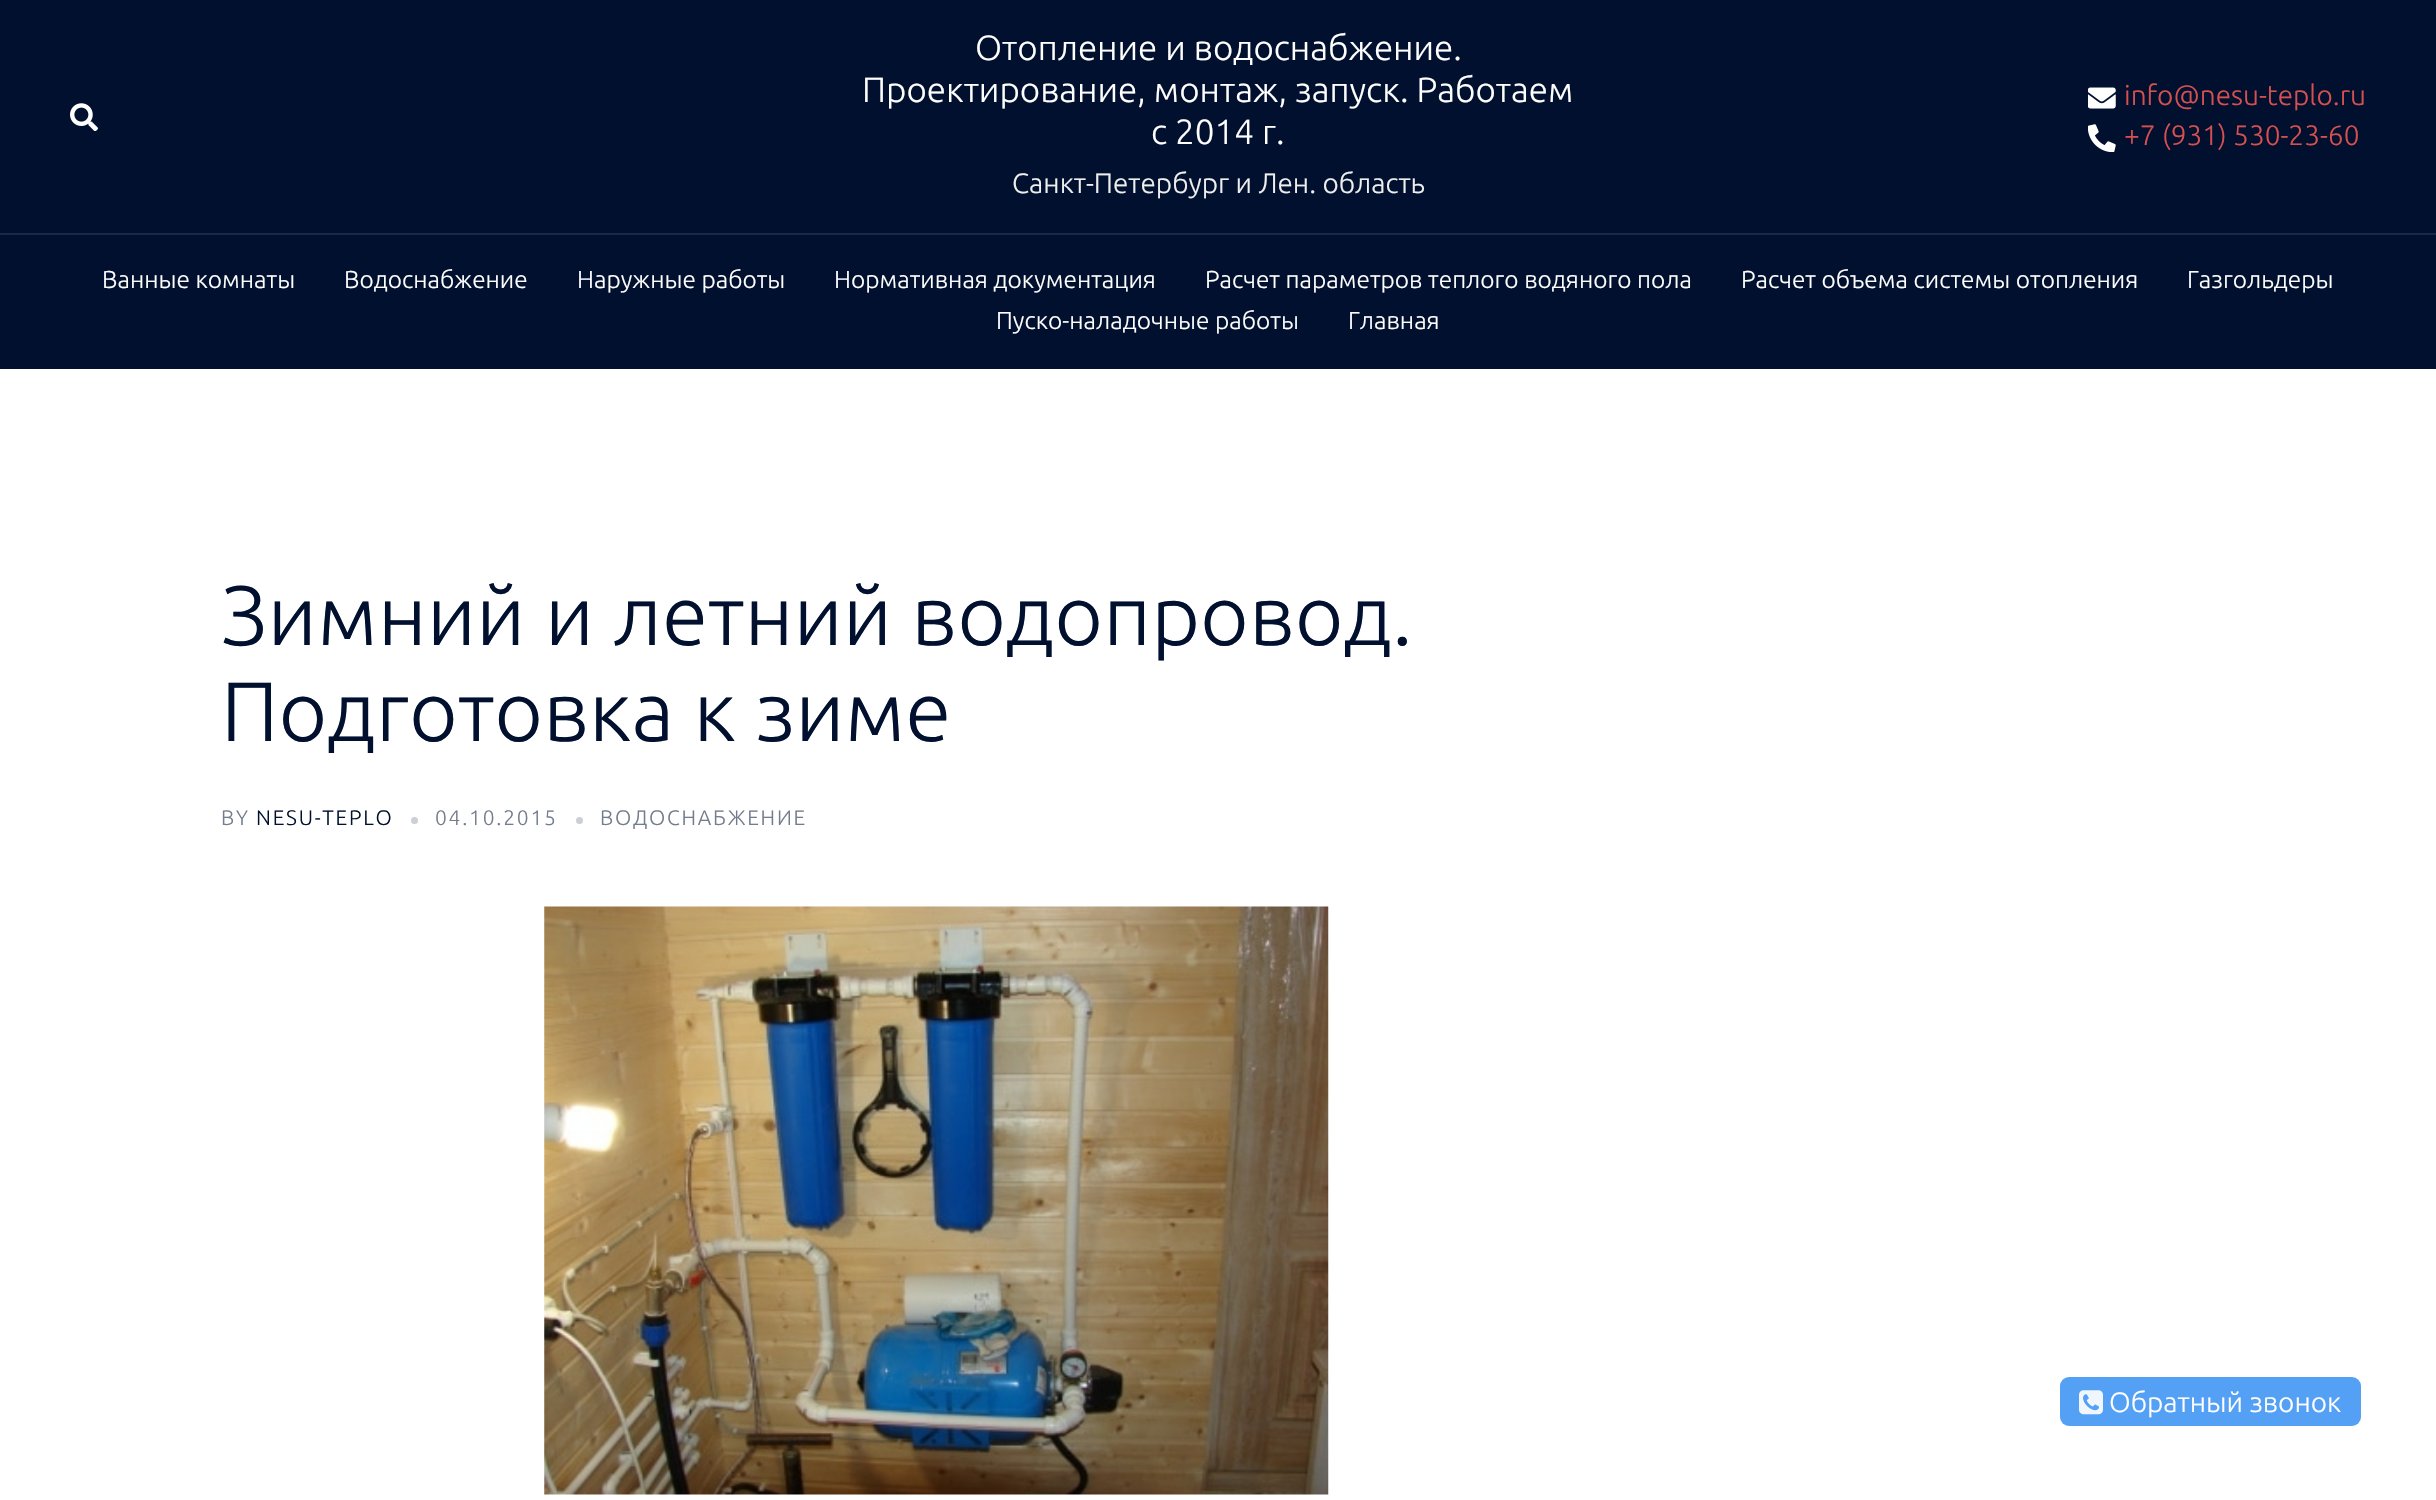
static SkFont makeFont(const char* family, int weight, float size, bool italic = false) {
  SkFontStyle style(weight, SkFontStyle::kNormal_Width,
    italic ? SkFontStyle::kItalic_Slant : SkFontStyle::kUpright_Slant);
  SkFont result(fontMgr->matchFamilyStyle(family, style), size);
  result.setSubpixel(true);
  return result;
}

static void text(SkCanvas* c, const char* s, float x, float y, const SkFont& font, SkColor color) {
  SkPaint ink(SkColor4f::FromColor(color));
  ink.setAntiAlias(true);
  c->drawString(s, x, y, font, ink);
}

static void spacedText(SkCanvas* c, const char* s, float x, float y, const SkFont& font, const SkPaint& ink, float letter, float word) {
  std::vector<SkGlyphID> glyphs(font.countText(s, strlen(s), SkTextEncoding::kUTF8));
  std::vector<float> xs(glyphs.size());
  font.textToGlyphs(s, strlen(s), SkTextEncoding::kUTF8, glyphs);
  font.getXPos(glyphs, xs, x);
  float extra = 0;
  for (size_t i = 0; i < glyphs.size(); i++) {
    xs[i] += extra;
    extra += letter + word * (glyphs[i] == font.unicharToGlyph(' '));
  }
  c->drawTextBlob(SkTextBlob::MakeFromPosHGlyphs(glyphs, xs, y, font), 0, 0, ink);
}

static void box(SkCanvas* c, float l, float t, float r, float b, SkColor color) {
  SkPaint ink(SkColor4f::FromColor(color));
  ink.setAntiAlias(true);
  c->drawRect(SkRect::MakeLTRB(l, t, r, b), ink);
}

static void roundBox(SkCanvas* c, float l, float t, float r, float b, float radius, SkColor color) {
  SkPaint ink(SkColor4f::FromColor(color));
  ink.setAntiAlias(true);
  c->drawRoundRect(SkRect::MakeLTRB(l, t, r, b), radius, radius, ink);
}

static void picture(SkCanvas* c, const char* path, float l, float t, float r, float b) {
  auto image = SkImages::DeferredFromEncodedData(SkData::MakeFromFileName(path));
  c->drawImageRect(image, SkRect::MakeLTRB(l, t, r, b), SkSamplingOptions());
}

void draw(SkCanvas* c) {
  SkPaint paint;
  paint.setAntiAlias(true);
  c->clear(0xffffffff);
  box(c, 0, 0, 2436, 233, 0xff00102e);
  box(c, 0, 233, 2436, 235, 0xff1a2843);
  picture(c, "img_01.png", 70, 103, 98, 131);
  SkFont face1 = makeFont("Ubuntu", 300, 35);
  text(c, "Отопление и водоснабжение.", 975, 60, face1, 0xffffffff);
  text(c, "Проектирование, монтаж, запуск. Работаем", 862, 102, face1, 0xffffffff);
  text(c, "с 2014 г.", 1151, 144, face1, 0xffffffff);
  SkFont face2 = makeFont("Ubuntu", 300, 28);
  text(c, "Санкт-Петербург и Лен. область", 1012, 193, face2, 0xffefefef);
  picture(c, "img_02.png", 2088, 87, 2116, 109);
  text(c, "info@nesu-teplo.ru", 2124, 105, face2, 0xffd65050);
  picture(c, "img_03.png", 2088, 124, 2116, 152);
  text(c, "+7 (931) 530-23-60", 2124, 145, face2, 0xffd65050);
  box(c, 0, 235, 2436, 369, 0xff00102e);
  SkFont face3 = makeFont("Ubuntu", 300, 24.5f);
  text(c, "Ванные комнаты", 102, 288, face3, 0xffffffff);
  text(c, "Водоснабжение", 344, 288, face3, 0xffffffff);
  text(c, "Наружные работы", 577, 288, face3, 0xffffffff);
  text(c, "Нормативная документация", 834, 288, face3, 0xffffffff);
  text(c, "Расчет параметров теплого водяного пола", 1205, 288, face3, 0xffffffff);
  text(c, "Расчет объема системы отопления", 1741, 288, face3, 0xffffffff);
  text(c, "Газгольдеры", 2187, 288, face3, 0xffffffff);
  text(c, "Пуско-наладочные работы", 996, 329, face3, 0xffffffff);
  text(c, "Главная", 1348, 329, face3, 0xffffffff);
  SkFont face4 = makeFont("Ubuntu", 300, 84);
  text(c, "Зимний и летний водопровод.", 221, 645, face4, 0xff00102e);
  text(c, "Подготовка к зиме", 221, 741, face4, 0xff00102e);
  SkFont face5 = makeFont("Ubuntu", 300, 21);
  paint.setColor(0xff737c8c);
  spacedText(c, "BY", 221, 825, face5, paint, 1.75f, 0);
  paint.setColor(0xff00102e);
  spacedText(c, "NESU-TEPLO", 256, 825, face5, paint, 1.75f, 0);
  paint.setColor(0xffcccfd5);
  c->drawCircle(414.5f, 820.5f, 3.5f, paint);
  paint.setColor(0xff737c8c);
  spacedText(c, "04.10.2015", 435, 825, face5, paint, 1.75f, 0);
  paint.setColor(0xffcccfd5);
  c->drawCircle(579.5f, 820.5f, 3.5f, paint);
  paint.setColor(0xff737c8c);
  spacedText(c, "ВОДОСНАБЖЕНИЕ", 600, 825, face5, paint, 1.75f, 0);
  picture(c, "img_04.png", 544, 906, 1329, 1495);
  roundBox(c, 2060, 1377, 2361, 1426, 9, 0xff53a0f5);
  picture(c, "img_05.png", 2079, 1390, 2103, 1415);
  text(c, "Обратный звонок", 2109, 1412, face2, 0xffffffff);
}
